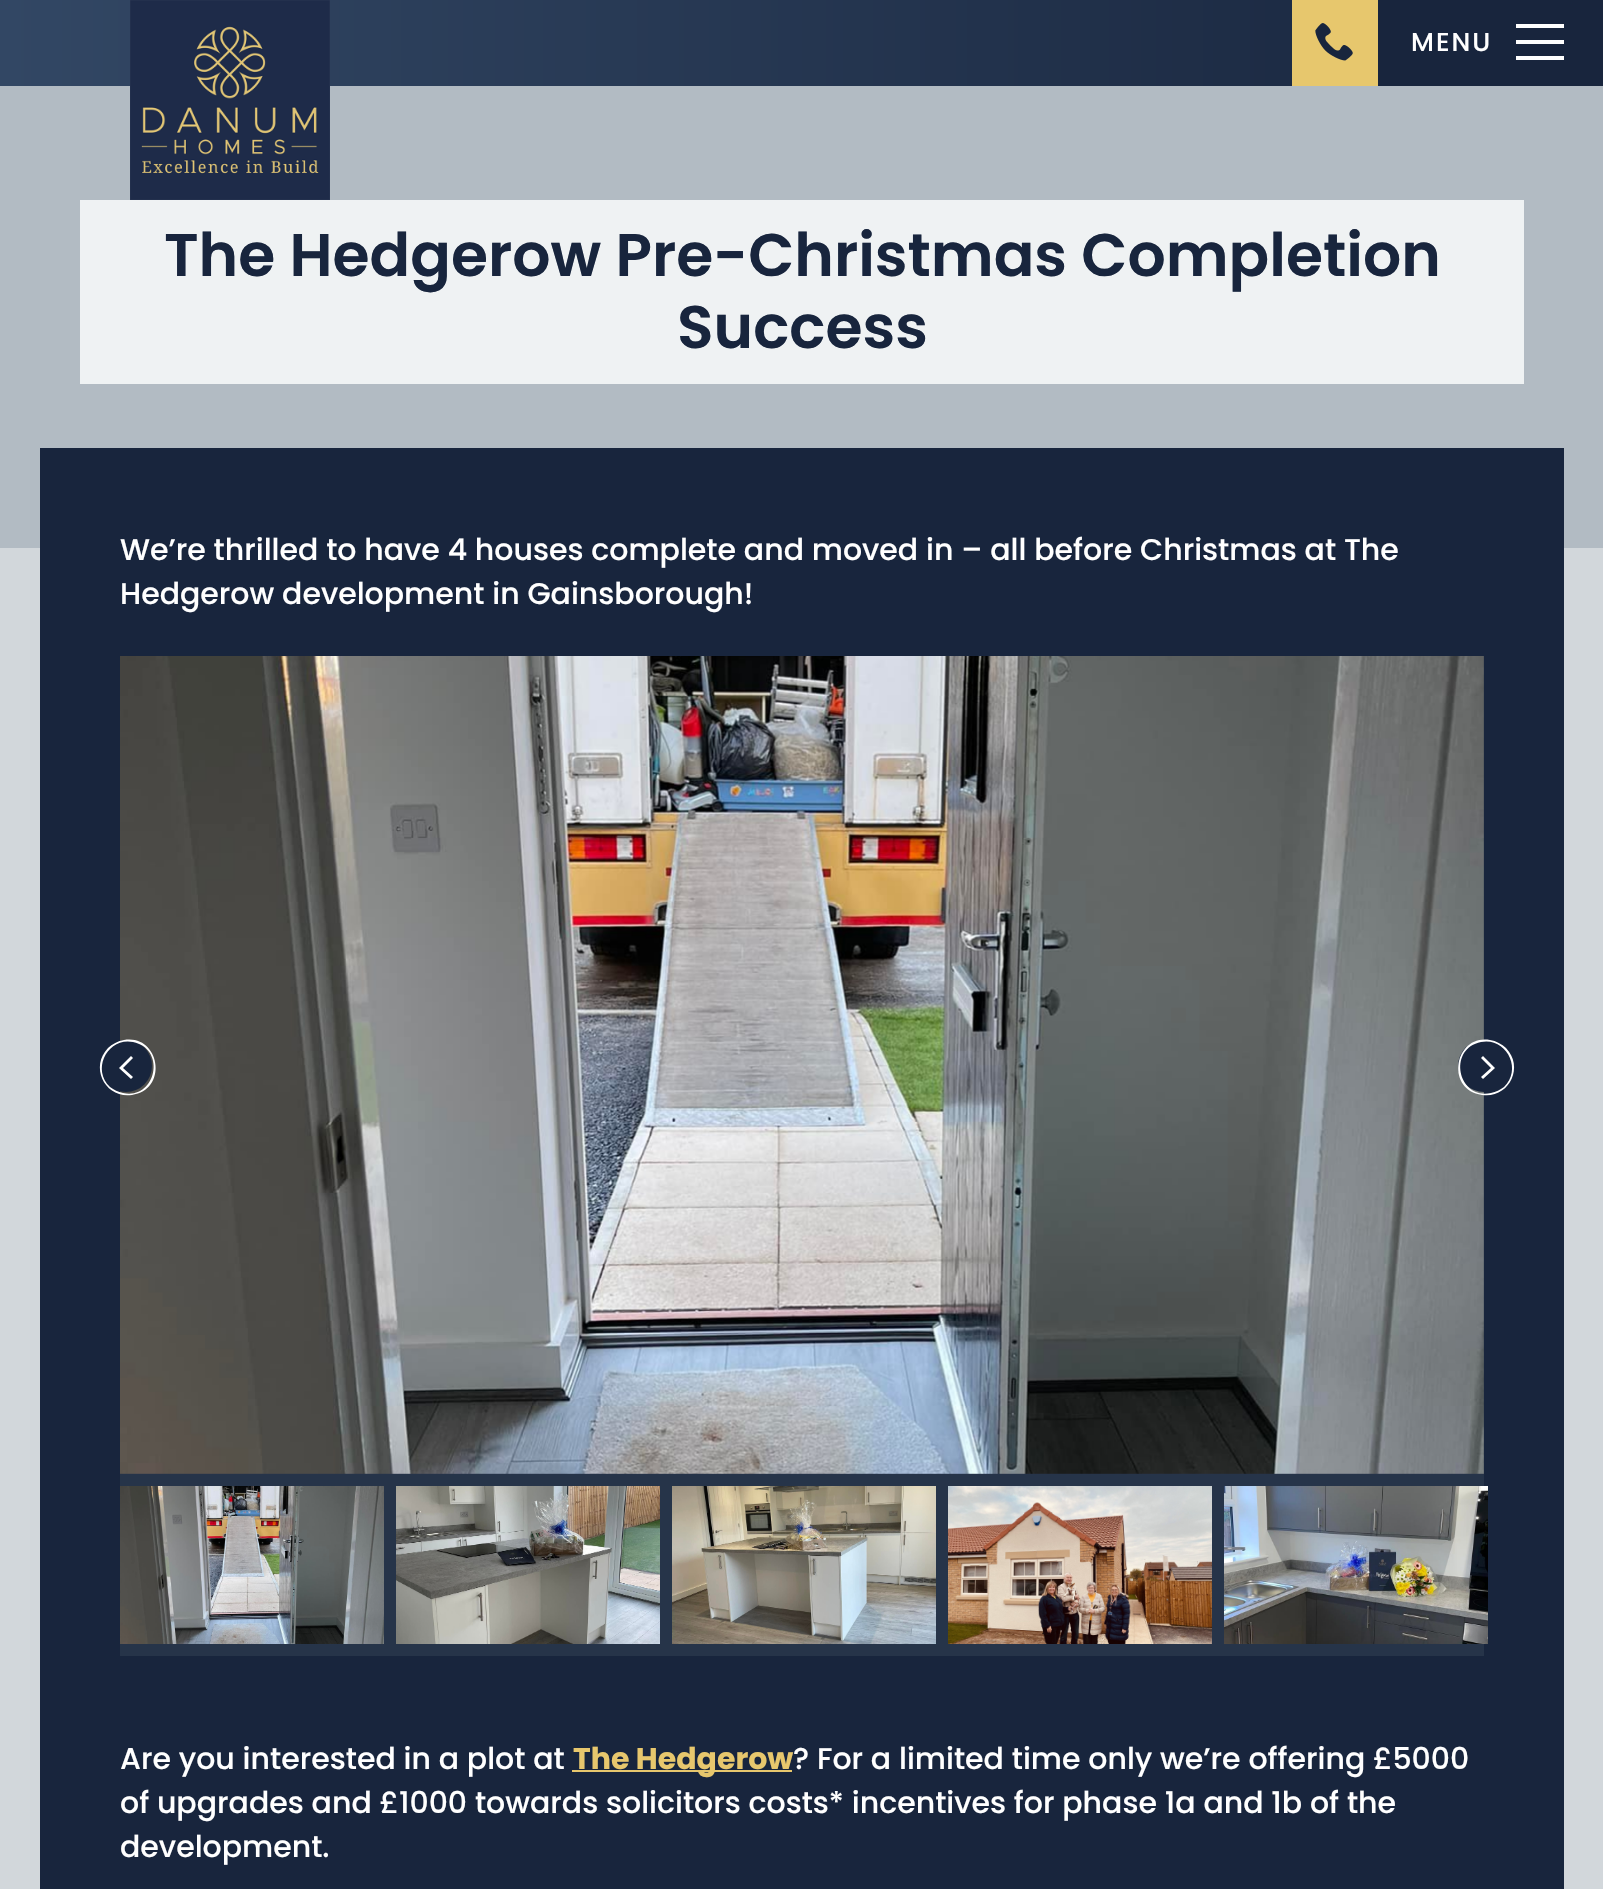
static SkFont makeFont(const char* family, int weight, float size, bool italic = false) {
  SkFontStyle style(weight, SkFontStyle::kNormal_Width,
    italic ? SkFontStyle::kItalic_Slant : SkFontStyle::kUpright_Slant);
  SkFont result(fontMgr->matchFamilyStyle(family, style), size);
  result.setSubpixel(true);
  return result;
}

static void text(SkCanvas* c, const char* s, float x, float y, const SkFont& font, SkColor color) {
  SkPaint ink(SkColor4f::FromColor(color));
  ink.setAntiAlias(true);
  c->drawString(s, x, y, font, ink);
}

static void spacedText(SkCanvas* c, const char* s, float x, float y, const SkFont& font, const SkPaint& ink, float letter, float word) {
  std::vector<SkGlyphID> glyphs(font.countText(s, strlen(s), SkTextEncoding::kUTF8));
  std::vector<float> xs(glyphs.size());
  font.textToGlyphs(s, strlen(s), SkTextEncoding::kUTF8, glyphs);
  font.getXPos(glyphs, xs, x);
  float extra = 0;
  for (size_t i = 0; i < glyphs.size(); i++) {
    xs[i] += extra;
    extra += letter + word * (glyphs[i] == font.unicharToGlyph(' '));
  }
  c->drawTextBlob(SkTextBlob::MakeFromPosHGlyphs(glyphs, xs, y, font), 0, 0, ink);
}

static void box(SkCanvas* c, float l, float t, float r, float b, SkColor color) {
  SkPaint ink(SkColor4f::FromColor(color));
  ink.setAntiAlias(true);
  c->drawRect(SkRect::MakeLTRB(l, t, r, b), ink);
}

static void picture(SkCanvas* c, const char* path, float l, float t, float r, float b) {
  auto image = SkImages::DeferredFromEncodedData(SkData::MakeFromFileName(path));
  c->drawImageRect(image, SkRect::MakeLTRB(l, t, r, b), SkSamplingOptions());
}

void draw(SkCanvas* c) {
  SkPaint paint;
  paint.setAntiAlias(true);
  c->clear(0xffd2d7db);
  {
    const SkColor colors[] = {0xff324764, 0xff18253d};
    const float stops[] = {0, 1};
    const SkPoint ends[] = {{0, 43}, {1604, 43}};
    paint.setShader(SkGradientShader::MakeLinear(ends, colors, stops, 2, SkTileMode::kClamp));
    paint.setAlpha(255);
  }
  c->drawRect(SkRect::MakeLTRB(0, 0, 1292, 86), paint);
  box(c, 0, 86, 1603, 548, 0xffb2bbc3);
  picture(c, "img_01.png", 130, 0, 330, 200);
  box(c, 1292, 0, 1378, 86, 0xffe7c76d);
  picture(c, "img_02.png", 1315, 23, 1353, 61);
  box(c, 1378, 0, 1603, 86, 0xff18253d);
  SkFont face1 = makeFont("Poppins", 500, 26);
  paint.setShader(nullptr);
  paint.setColor(0xffffffff);
  spacedText(c, "MENU", 1411, 51, face1, paint, 2, 0);
  box(c, 1516, 24, 1564, 28, 0xffffffff);
  box(c, 1516, 40, 1564, 44, 0xffffffff);
  box(c, 1516, 56, 1564, 60, 0xffffffff);
  box(c, 80, 200, 1524, 384, 0xffeff2f3);
  SkFont face2 = makeFont("Poppins", 600, 60);
  text(c, "The Hedgerow Pre-Christmas Completion", 164, 276, face2, 0xff18253d);
  text(c, "Success", 677, 348, face2, 0xff18253d);
  box(c, 40, 448, 1564, 1889, 0xff18253d);
  SkFont face3 = makeFont("Poppins", 500, 30);
  text(c, "We’re thrilled to have 4 houses complete and moved in – all before Christmas at The", 120, 560, face3, 0xffffffff);
  text(c, "Hedgerow development in Gainsborough!", 120, 604, face3, 0xffffffff);
  box(c, 120, 656, 1484, 1656, 0xff263449);
  picture(c, "img_03.png", 120, 656, 1484, 1474);
  paint.setColor(0xff18253d);
  c->drawCircle(126, 1066, 26, paint);
  paint.setColor(0xffffffff);
  c->drawPath(SkPathBuilder().moveTo(124, 1040).cubicTo(118, 1041, 112, 1044, 108, 1048).cubicTo(89, 1068, 106, 1099, 132, 1095).cubicTo(169, 1090, 160, 1034, 124, 1040).close().moveTo(133, 1042).cubicTo(167, 1049, 156, 1100, 123, 1093).cubicTo(118, 1092, 114, 1090, 110, 1087).cubicTo(91, 1069, 108, 1037, 133, 1042).close().moveTo(125, 1062).lineTo(119, 1068).lineTo(131, 1079).lineTo(133, 1077).lineTo(123, 1068).lineTo(133, 1058).lineTo(131, 1056).close().detach(), paint);
  paint.setColor(0xff18253d);
  c->drawCircle(1484, 1066, 26, paint);
  paint.setColor(0xffffffff);
  c->drawPath(SkPathBuilder().moveTo(1490, 1040).cubicTo(1496, 1041, 1502, 1044, 1506, 1048).cubicTo(1525, 1068, 1508, 1099, 1482, 1095).cubicTo(1445, 1090, 1454, 1034, 1490, 1040).close().moveTo(1481, 1042).cubicTo(1447, 1049, 1458, 1100, 1491, 1093).cubicTo(1496, 1092, 1500, 1090, 1504, 1087).cubicTo(1523, 1069, 1506, 1037, 1481, 1042).close().moveTo(1489, 1062).lineTo(1495, 1068).lineTo(1483, 1079).lineTo(1481, 1077).lineTo(1491, 1068).lineTo(1481, 1058).lineTo(1483, 1056).close().detach(), paint);
  picture(c, "img_04.png", 120, 1486, 384, 1644);
  picture(c, "img_05.png", 396, 1486, 660, 1644);
  picture(c, "img_06.png", 672, 1486, 936, 1644);
  picture(c, "img_07.png", 948, 1486, 1212, 1644);
  picture(c, "img_08.png", 1224, 1486, 1488, 1644);
  text(c, "Are you interested in a plot at", 120, 1769, face3, 0xffffffff);
  box(c, 572, 1770, 792, 1772, 0xffe7c76d);
  SkFont face4 = makeFont("Poppins", 700, 30);
  text(c, "The Hedgerow", 573, 1769, face4, 0xffe7c76d);
  text(c, "? For a limited time only we’re offering £5000", 793, 1769, face3, 0xffffffff);
  text(c, "of upgrades and £1000 towards solicitors costs* incentives for phase 1a and 1b of the", 120, 1813, face3, 0xffffffff);
  text(c, "development.", 120, 1857, face3, 0xffffffff);
}
